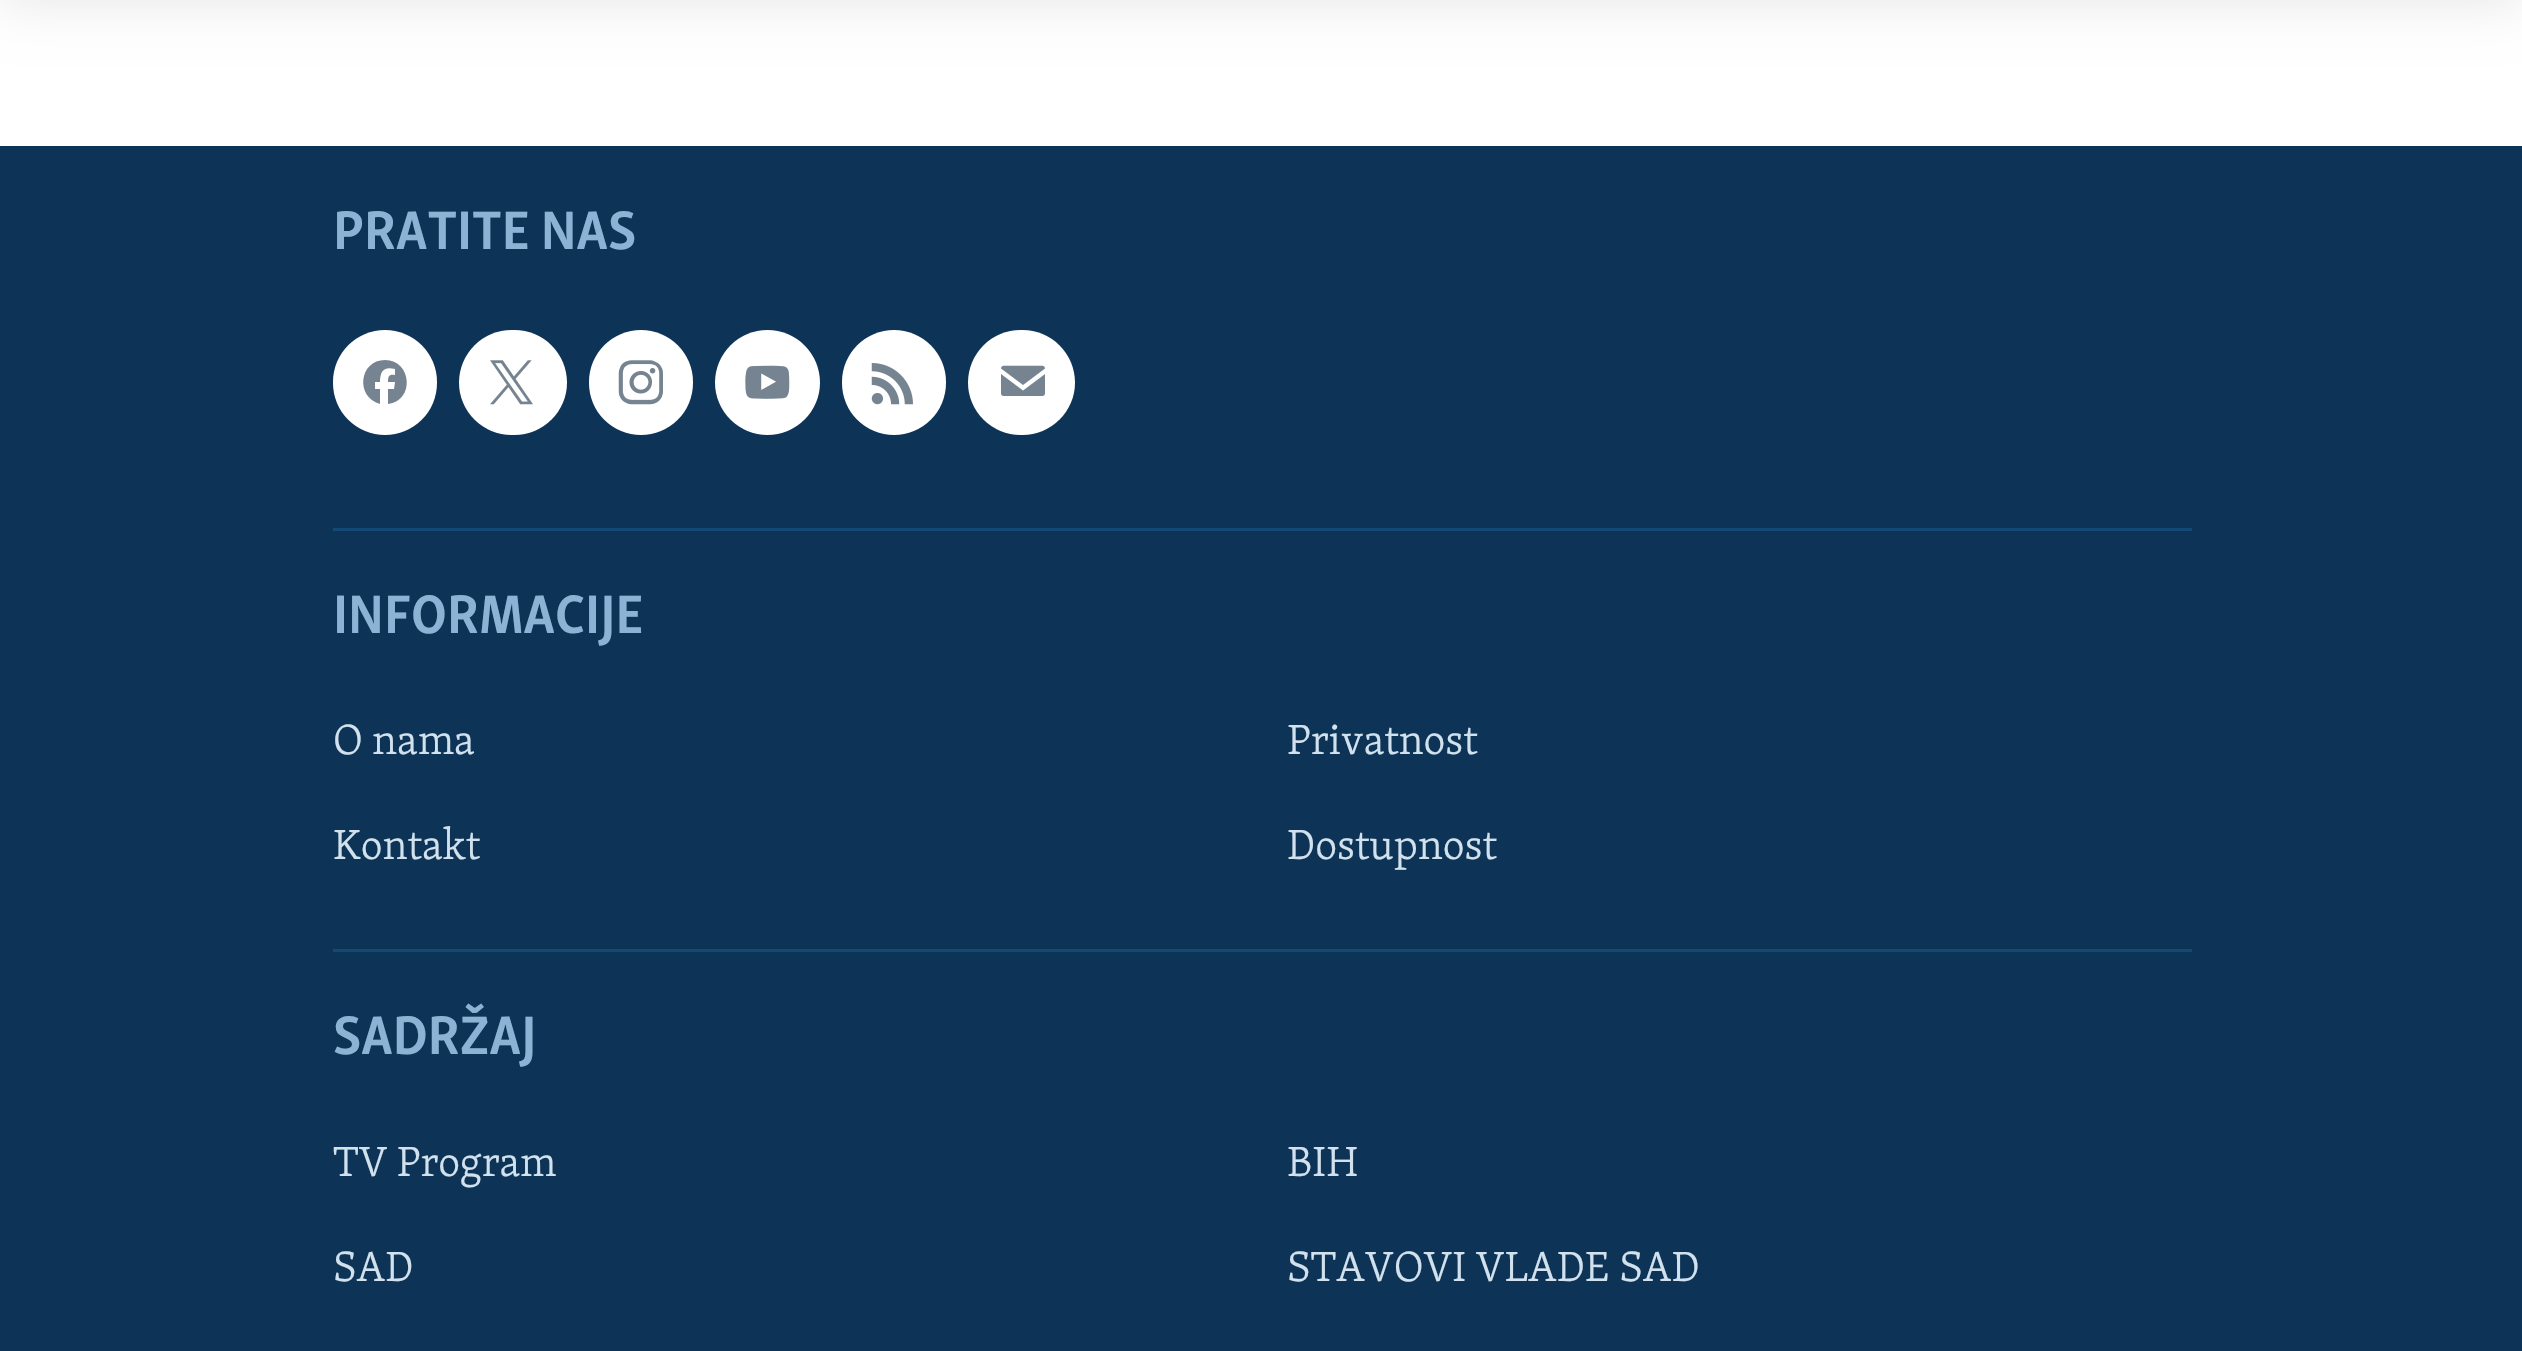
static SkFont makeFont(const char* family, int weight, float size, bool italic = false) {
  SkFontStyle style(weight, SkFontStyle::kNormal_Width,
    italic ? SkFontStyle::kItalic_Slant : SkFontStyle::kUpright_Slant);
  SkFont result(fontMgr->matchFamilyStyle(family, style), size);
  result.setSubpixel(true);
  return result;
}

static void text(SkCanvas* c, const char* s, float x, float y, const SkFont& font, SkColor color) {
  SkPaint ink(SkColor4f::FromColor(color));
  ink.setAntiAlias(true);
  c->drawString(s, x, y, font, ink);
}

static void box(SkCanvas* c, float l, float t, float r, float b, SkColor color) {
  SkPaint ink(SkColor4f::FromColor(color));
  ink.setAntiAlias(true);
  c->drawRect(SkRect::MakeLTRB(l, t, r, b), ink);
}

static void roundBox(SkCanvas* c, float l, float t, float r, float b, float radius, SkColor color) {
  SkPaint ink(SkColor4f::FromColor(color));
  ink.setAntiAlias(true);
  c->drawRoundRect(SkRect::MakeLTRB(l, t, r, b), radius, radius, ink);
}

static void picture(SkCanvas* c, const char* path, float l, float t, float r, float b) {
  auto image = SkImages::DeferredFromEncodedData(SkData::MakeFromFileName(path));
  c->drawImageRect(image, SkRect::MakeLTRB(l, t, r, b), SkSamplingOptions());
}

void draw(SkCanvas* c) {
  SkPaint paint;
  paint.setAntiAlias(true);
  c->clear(0xffffffff);
  paint.setColor(0x1a000000);
  paint.setMaskFilter(SkMaskFilter::MakeBlur(kNormal_SkBlurStyle, 27.5f));
  c->drawRect(SkRect::MakeLTRB(0, -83, 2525, 0), paint);
  paint.setMaskFilter(nullptr);
  box(c, 0, 146, 2522, 1351, 0xff0d3456);
  SkFont face1 = makeFont("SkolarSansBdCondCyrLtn", 700, 55.75f);
  text(c, "PRATITE NAS", 333, 249, face1, 0xff8db3d4);
  roundBox(c, 333, 330, 437, 435, 52, 0xffffffff);
  paint.setColor(0xff768492);
  c->drawPath(SkPathBuilder().moveTo(385, 360).cubicTo(359, 360, 355, 397, 380, 404).lineTo(380, 389).lineTo(375, 389).lineTo(375, 382).lineTo(380, 382).cubicTo(380, 371, 384, 366, 395, 369).lineTo(395, 375).cubicTo(389, 374, 388, 376, 388, 382).lineTo(395, 382).lineTo(394, 389).lineTo(388, 389).lineTo(388, 404).cubicTo(415, 401, 412, 360, 385, 360).close().detach(), paint);
  roundBox(c, 459, 330, 567, 435, 52.5f, 0xffffffff);
  picture(c, "img_01.png", 490, 360, 533, 405);
  roundBox(c, 589, 330, 693, 435, 52, 0xffffffff);
  picture(c, "img_02.png", 618, 360, 663, 405);
  paint.setColor(0xffffffff);
  c->drawCircle(767.5f, 382.5f, 52.5f, paint);
  picture(c, "img_03.png", 745, 365, 790, 399);
  roundBox(c, 842, 330, 946, 435, 52, 0xffffffff);
  picture(c, "img_04.png", 871, 363, 913, 405);
  roundBox(c, 968, 330, 1075, 435, 52.5f, 0xffffffff);
  picture(c, "img_05.png", 1001, 365, 1045, 396);
  box(c, 333, 528, 2192, 531, 0xff134976);
  text(c, "INFORMACIJE", 333, 633, face1, 0xff8db3d4);
  SkFont face2 = makeFont("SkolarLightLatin", 300, 43.25f);
  text(c, "O nama", 333, 754, face2, 0xffd1e1ee);
  text(c, "Privatnost", 1287, 754, face2, 0xffd1e1ee);
  text(c, "Kontakt", 333, 859, face2, 0xffd1e1ee);
  text(c, "Dostupnost", 1287, 859, face2, 0xffd1e1ee);
  box(c, 333, 949, 2192, 952, 0xff134976);
  text(c, "SADRŽAJ", 333, 1054, face1, 0xff8db3d4);
  text(c, "TV Program", 333, 1176, face2, 0xffd1e1ee);
  text(c, "BIH", 1287, 1176, face2, 0xffd1e1ee);
  text(c, "SAD", 333, 1281, face2, 0xffd1e1ee);
  text(c, "STAVOVI VLADE SAD", 1287, 1281, face2, 0xffd1e1ee);
}
